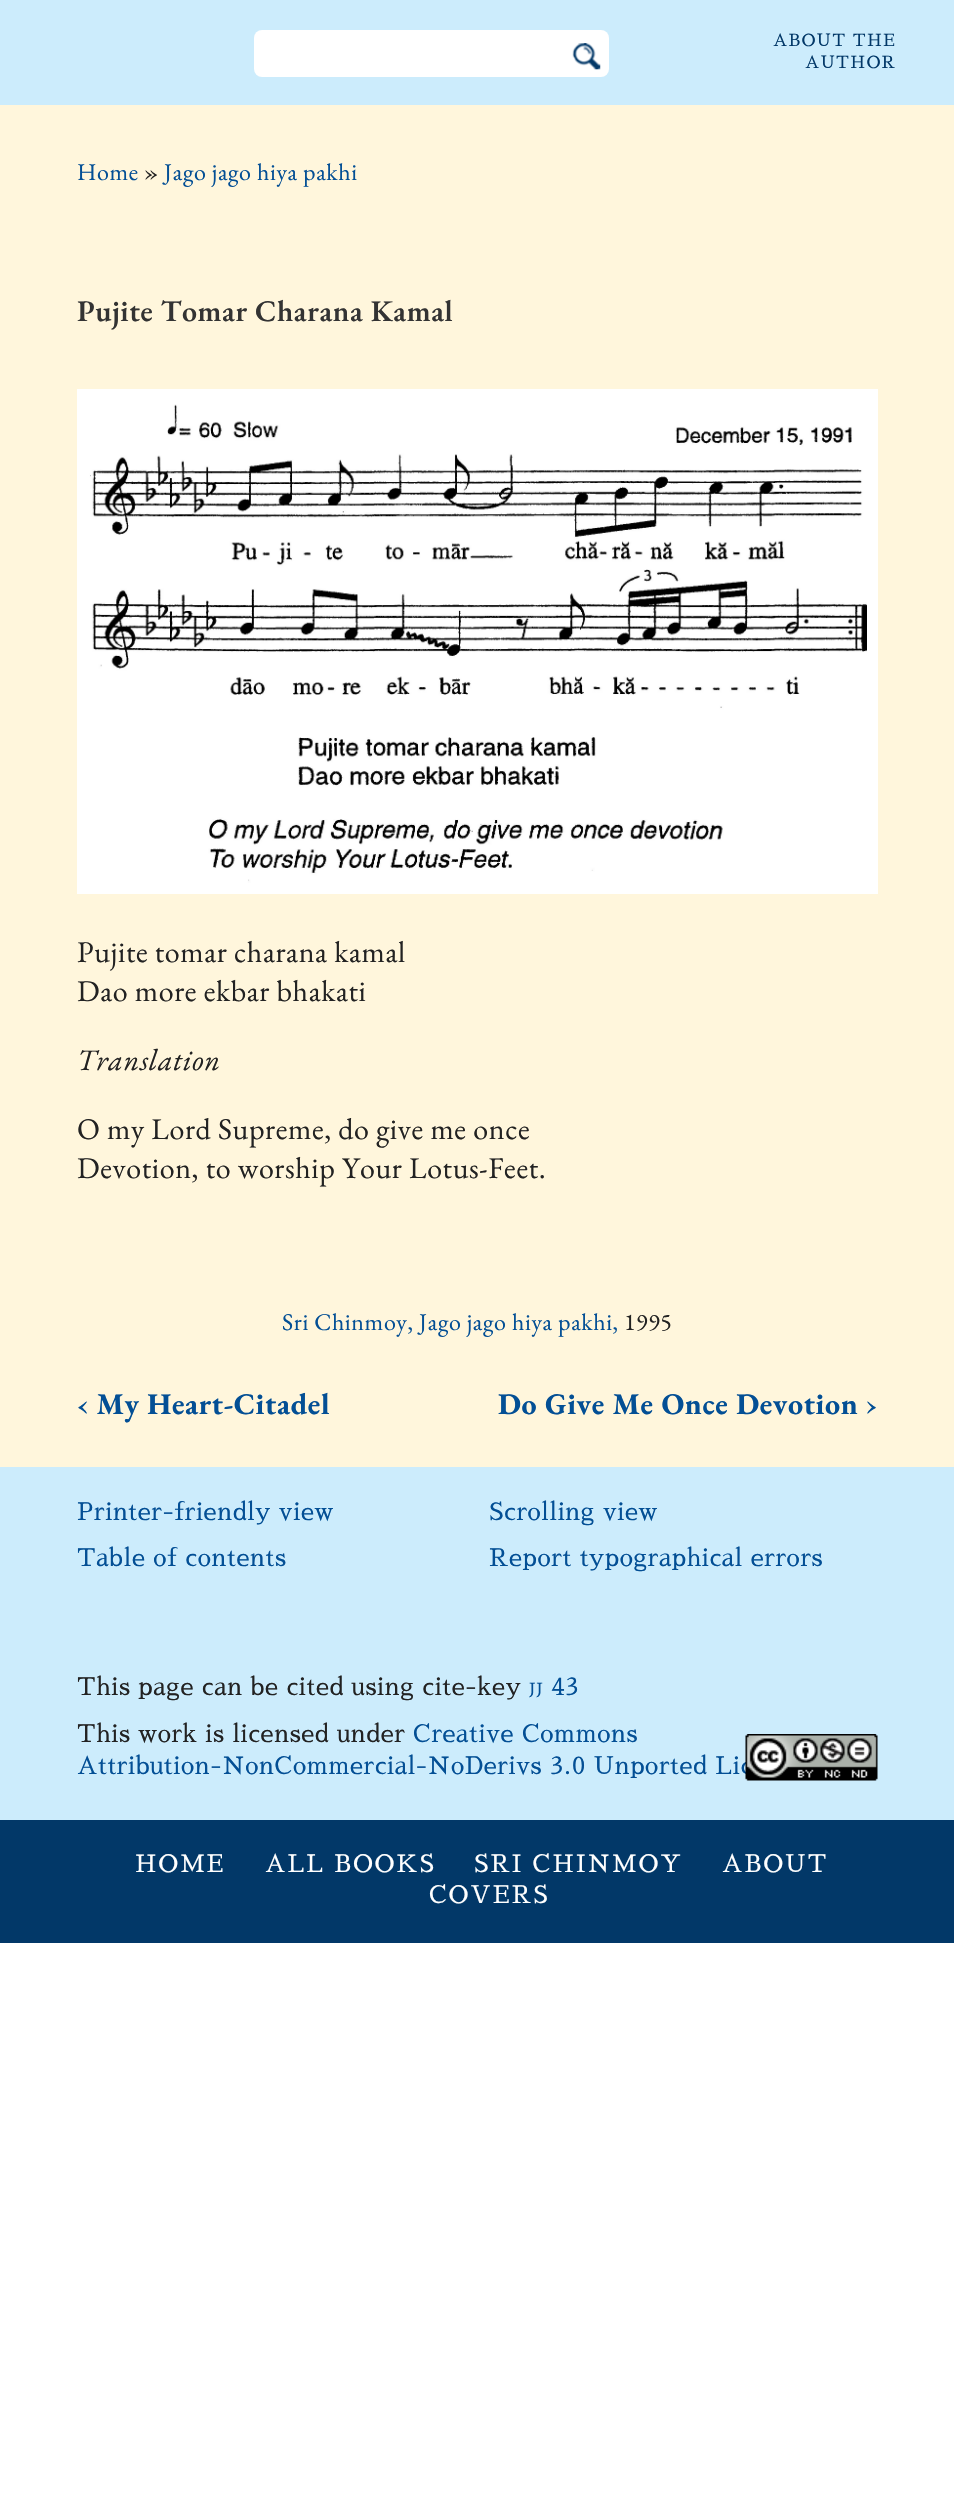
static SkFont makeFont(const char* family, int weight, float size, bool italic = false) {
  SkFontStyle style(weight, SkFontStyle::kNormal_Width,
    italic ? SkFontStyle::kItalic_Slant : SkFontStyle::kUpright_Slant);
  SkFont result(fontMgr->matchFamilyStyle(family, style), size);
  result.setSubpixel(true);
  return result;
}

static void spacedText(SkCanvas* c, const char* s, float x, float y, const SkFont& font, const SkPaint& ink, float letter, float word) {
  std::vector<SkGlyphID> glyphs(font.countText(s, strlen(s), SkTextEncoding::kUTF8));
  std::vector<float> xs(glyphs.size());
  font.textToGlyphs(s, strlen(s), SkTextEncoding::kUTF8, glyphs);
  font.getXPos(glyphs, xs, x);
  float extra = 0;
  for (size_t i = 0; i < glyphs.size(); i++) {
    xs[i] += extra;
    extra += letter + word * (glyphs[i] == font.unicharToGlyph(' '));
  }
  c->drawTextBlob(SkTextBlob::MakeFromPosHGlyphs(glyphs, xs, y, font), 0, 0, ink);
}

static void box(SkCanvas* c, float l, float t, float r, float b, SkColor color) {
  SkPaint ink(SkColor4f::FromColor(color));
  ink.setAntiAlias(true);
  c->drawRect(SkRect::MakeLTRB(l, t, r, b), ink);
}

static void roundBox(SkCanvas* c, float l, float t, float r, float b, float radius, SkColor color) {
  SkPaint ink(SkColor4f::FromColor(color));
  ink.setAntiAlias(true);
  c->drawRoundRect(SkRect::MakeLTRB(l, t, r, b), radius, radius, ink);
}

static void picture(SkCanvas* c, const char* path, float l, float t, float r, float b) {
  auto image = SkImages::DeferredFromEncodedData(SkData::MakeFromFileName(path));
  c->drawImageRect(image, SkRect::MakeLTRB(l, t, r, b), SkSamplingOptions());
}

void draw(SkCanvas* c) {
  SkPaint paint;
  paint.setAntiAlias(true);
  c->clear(0xffffffff);
  box(c, 0, 105, 954, 1467, 0xfffff6dc);
  box(c, 0, 0, 954, 105, 0xffccecfc);
  roundBox(c, 254, 30, 609, 77, 8, 0xffffffff);
  picture(c, "img_01.png", 572, 43, 601, 70);
  SkFont face1 = makeFont("Sawarabi Mincho", 400, 16.75f);
  paint.setColor(0xff023868);
  spacedText(c, "ABOUT THE", 773, 46, face1, paint, 1.25f, 0);
  spacedText(c, "AUTHOR", 805, 68, face1, paint, 1.25f, 0);
  SkFont face2 = makeFont("EB Garamond", 400, 24);
  paint.setColor(0xff034f95);
  spacedText(c, "Home", 77, 180, face2, paint, 0.6f, 0);
  paint.setColor(0xff222222);
  spacedText(c, "»", 144, 180, face2, paint, 0.6f, 0);
  paint.setColor(0xff034f95);
  spacedText(c, "Jago jago hiya pakhi", 164, 180, face2, paint, 0.6f, 0);
  SkFont face3 = makeFont("EB Garamond", 600, 30);
  paint.setColor(0xff333333);
  spacedText(c, "Pujite Tomar Charana Kamal", 77, 321, face3, paint, 0.6f, 0);
  paint.setStyle(SkPaint::kStroke_Style);
  paint.setStrokeWidth(11);
  paint.setColor(0xffffffff);
  c->drawRect(SkRect::MakeLTRB(82.5f, 394.5f, 872.5f, 888.5f), paint);
  picture(c, "img_02.png", 88, 400, 867, 883);
  SkFont face4 = makeFont("EB Garamond", 400, 30);
  paint.setStyle(SkPaint::kFill_Style);
  paint.setColor(0xff222222);
  spacedText(c, "Pujite tomar charana kamal", 77, 962, face4, paint, 0.6f, 0);
  spacedText(c, "Dao more ekbar bhakati", 77, 1001, face4, paint, 0.6f, 0);
  SkFont face5 = makeFont("EB Garamond", 400, 30, true);
  spacedText(c, "Translation", 77, 1070, face5, paint, 0.6f, 0);
  spacedText(c, "O my Lord Supreme, do give me once", 77, 1139, face4, paint, 0.6f, 0);
  spacedText(c, "Devotion, to worship Your Lotus-Feet.", 77, 1178, face4, paint, 0.6f, 0);
  paint.setColor(0xff034f95);
  spacedText(c, "Sri Chinmoy, Jago jago hiya pakhi,", 282, 1330, face2, paint, 0.6f, 0);
  paint.setColor(0xff222222);
  spacedText(c, "1995", 624, 1330, face2, paint, 0.6f, 0);
  SkFont face6 = makeFont("EB Garamond", 700, 30);
  paint.setColor(0xff034f95);
  spacedText(c, "‹ My Heart-Citadel", 77, 1414, face6, paint, 0.6f, 0);
  spacedText(c, "Do Give Me Once Devotion ›", 498, 1414, face6, paint, 0.6f, 0);
  box(c, 0, 1467, 954, 1820, 0xffccecfc);
  SkFont face7 = makeFont("Sawarabi Mincho", 400, 24);
  spacedText(c, "Printer-friendly view", 77, 1520, face7, paint, 0.6f, 0);
  spacedText(c, "Scrolling view", 489, 1520, face7, paint, 0.6f, 0);
  spacedText(c, "Table of contents", 77, 1566, face7, paint, 0.6f, 0);
  spacedText(c, "Report typographical errors", 489, 1566, face7, paint, 0.6f, 0);
  paint.setColor(0xff222222);
  spacedText(c, "This page can be cited using cite-key", 77, 1695, face7, paint, 0.6f, 0);
  paint.setColor(0xff034f95);
  spacedText(c, "JJ", 529, 1695, face1, paint, 0.6f, 0);
  spacedText(c, "43", 551, 1695, face7, paint, 0.6f, 0);
  paint.setColor(0xff222222);
  spacedText(c, "This work is licensed under", 77, 1742, face7, paint, 0.6f, 0);
  paint.setColor(0xff034f95);
  spacedText(c, "Creative Commons", 413, 1742, face7, paint, 0.6f, 0);
  spacedText(c, "Attribution-NonCommercial-NoDerivs 3.0 Unported Lic", 77, 1774, face7, paint, 0.6f, 0);
  picture(c, "img_03.png", 745, 1734, 878, 1781);
  box(c, 0, 1820, 954, 1943, 0xff023868);
  paint.setColor(0xffffffff);
  spacedText(c, "HOME", 135, 1872, face7, paint, 2, 0);
  spacedText(c, "ALL BOOKS", 265, 1872, face7, paint, 2, 0);
  spacedText(c, "SRI CHINMOY", 474, 1872, face7, paint, 2, 0);
  spacedText(c, "ABOUT", 722, 1872, face7, paint, 2, 0);
  spacedText(c, "COVERS", 429, 1903, face7, paint, 2, 0);
}
